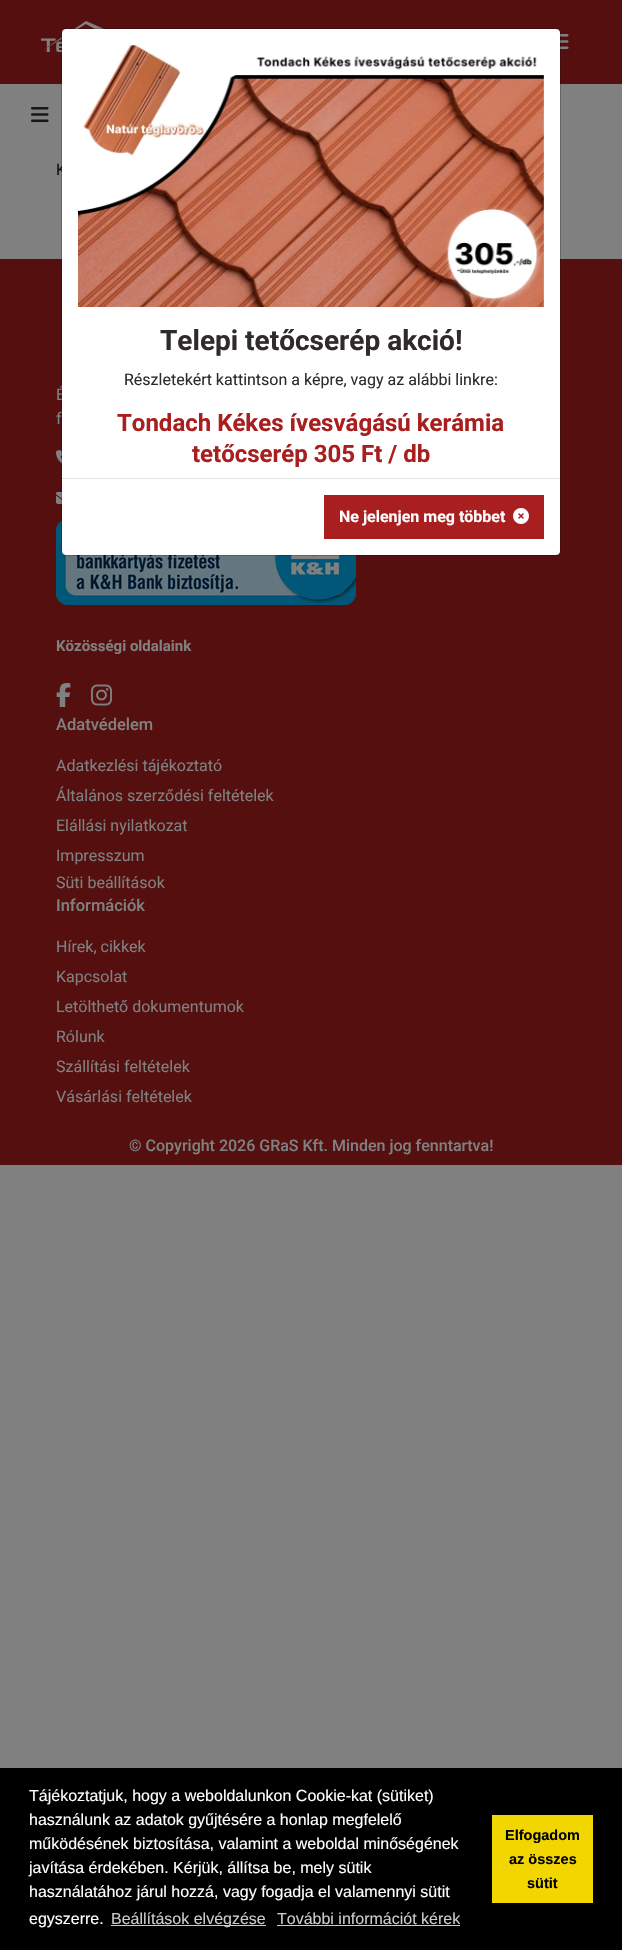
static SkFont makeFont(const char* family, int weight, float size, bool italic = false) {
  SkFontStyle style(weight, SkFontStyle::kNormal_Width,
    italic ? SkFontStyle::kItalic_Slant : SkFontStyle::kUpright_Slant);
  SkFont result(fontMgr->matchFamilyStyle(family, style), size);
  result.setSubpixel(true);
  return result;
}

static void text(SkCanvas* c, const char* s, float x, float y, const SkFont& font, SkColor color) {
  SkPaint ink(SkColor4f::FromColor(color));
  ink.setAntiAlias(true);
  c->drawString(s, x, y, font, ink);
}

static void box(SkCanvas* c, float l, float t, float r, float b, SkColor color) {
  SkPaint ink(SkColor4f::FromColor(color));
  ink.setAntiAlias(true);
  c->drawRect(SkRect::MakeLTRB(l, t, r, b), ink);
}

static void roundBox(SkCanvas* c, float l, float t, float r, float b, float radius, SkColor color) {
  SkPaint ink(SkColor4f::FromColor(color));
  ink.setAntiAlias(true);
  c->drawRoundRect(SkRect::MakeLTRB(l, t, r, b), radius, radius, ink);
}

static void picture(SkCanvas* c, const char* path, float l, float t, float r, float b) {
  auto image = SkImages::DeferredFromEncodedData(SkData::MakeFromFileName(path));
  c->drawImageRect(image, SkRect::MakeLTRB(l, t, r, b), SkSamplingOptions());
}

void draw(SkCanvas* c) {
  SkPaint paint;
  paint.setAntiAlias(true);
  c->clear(0xff808080);
  box(c, 0, 0, 622, 84, 0xff550f0f);
  picture(c, "img_01.png", 41, 21, 104, 52);
  picture(c, "img_02.png", 560, 34, 569, 49);
  picture(c, "img_03.png", 31, 107, 49, 122);
  SkFont face1 = makeFont("Roboto", 400, 16);
  text(c, "K", 56, 175, face1, 0xff171616);
  box(c, 0, 259, 622, 1165, 0xff550f0f);
  text(c, "É", 56, 400, face1, 0xff808080);
  picture(c, "img_08.png", 56, 520, 356, 605);
  roundBox(c, 62, 29, 560, 555, 4, 0xffffffff);
  text(c, "f", 56, 424, face1, 0xff808080);
  picture(c, "img_06.png", 56, 450, 62, 464);
  picture(c, "img_07.png", 56, 492, 62, 504);
  paint.setStyle(SkPaint::kStroke_Style);
  paint.setStrokeWidth(1);
  paint.setColor(0x33000000);
  c->drawRoundRect(SkRect::MakeLTRB(61.5f, 28.5f, 560.5f, 555.5f), 4.5f, 4.5f, paint);
  picture(c, "img_04.png", 78, 45, 544, 307);
  SkFont face2 = makeFont("Roboto", 700, 28);
  text(c, "Telepi tetőcserép akció!", 160, 350, face2, 0xff2f2b2b);
  text(c, "Részletekért kattintson a képre, vagy az alábbi linkre:", 124, 385, face1, 0xff2f2b2b);
  SkFont face3 = makeFont("Roboto", 700, 24);
  text(c, "Tondach Kékes ívesvágású kerámia", 117, 431, face3, 0xffa91e1e);
  text(c, "tetőcserép 305 Ft / db", 192, 462, face3, 0xffa91e1e);
  box(c, 62, 478, 560, 479, 0xffdee2e6);
  box(c, 324, 495, 544, 539, 0xffa91e1e);
  SkFont face4 = makeFont("Roboto", 700, 16);
  text(c, "Ne jelenjen meg többet", 339, 522, face4, 0xffffffff);
  picture(c, "img_05.png", 513, 508, 529, 524);
  SkFont face5 = makeFont("Roboto", 700, 15);
  text(c, "Közösségi oldalaink", 56, 651, face5, 0xff808080);
  picture(c, "img_09.png", 56, 683, 71, 707);
  picture(c, "img_10.png", 91, 684, 112, 706);
  SkFont face6 = makeFont("Roboto", 500, 16.5f);
  text(c, "Adatvédelem", 56, 730, face6, 0xff808080);
  text(c, "Adatkezlési tájékoztató", 56, 771, face1, 0xff808080);
  text(c, "Általános szerződési feltételek", 56, 801, face1, 0xff808080);
  text(c, "Elállási nyilatkozat", 56, 831, face1, 0xff808080);
  text(c, "Impresszum", 56, 861, face1, 0xff808080);
  text(c, "Süti beállítások", 56, 888, face1, 0xff808080);
  text(c, "Információk", 56, 911, face6, 0xff808080);
  text(c, "Hírek, cikkek", 56, 952, face1, 0xff808080);
  text(c, "Kapcsolat", 56, 982, face1, 0xff808080);
  text(c, "Letölthető dokumentumok", 56, 1012, face1, 0xff808080);
  text(c, "Rólunk", 56, 1042, face1, 0xff808080);
  text(c, "Szállítási feltételek", 56, 1072, face1, 0xff808080);
  text(c, "Vásárlási feltételek", 56, 1102, face1, 0xff808080);
  SkFont face7 = makeFont("Roboto", 500, 16);
  text(c, "© Copyright 2026 GRaS Kft. Minden jog fenntartva!", 129, 1151, face7, 0xff808080);
  box(c, 0, 1768, 622, 1950, 0xff000000);
  SkFont face8 = makeFont("Liberation Sans", 400, 16);
  text(c, "Tájékoztatjuk, hogy a weboldalunkon Cookie-kat (sütiket)", 29, 1801, face8, 0xffffffff);
  text(c, "használunk az adatok gyűjtésére a honlap megfelelő", 29, 1825, face8, 0xffffffff);
  text(c, "működésének biztosítása, valamint a weboldal minőségének", 29, 1849, face8, 0xffffffff);
  text(c, "javítása érdekében. Kérjük, állítsa be, mely sütik", 29, 1873, face8, 0xffffffff);
  text(c, "használatához járul hozzá, vagy fogadja el valamennyi sütit", 29, 1897, face8, 0xffffffff);
  text(c, "egyszerre.", 29, 1924, face8, 0xffffffff);
  box(c, 111, 1925, 266, 1926, 0xffcccccc);
  text(c, "Beállítások elvégzése", 111, 1924, face8, 0xffcccccc);
  text(c, "További információt kérek", 277, 1924, face8, 0xffcccccc);
  box(c, 277, 1925, 460, 1926, 0xffcccccc);
  box(c, 492, 1815, 593, 1903, 0xfff1d600);
  SkFont face9 = makeFont("Liberation Sans", 700, 14.5f);
  text(c, "Elfogadom", 505, 1840, face9, 0xff000000);
  text(c, "az összes", 509, 1864, face9, 0xff000000);
  text(c, "sütit", 527, 1888, face9, 0xff000000);
}
